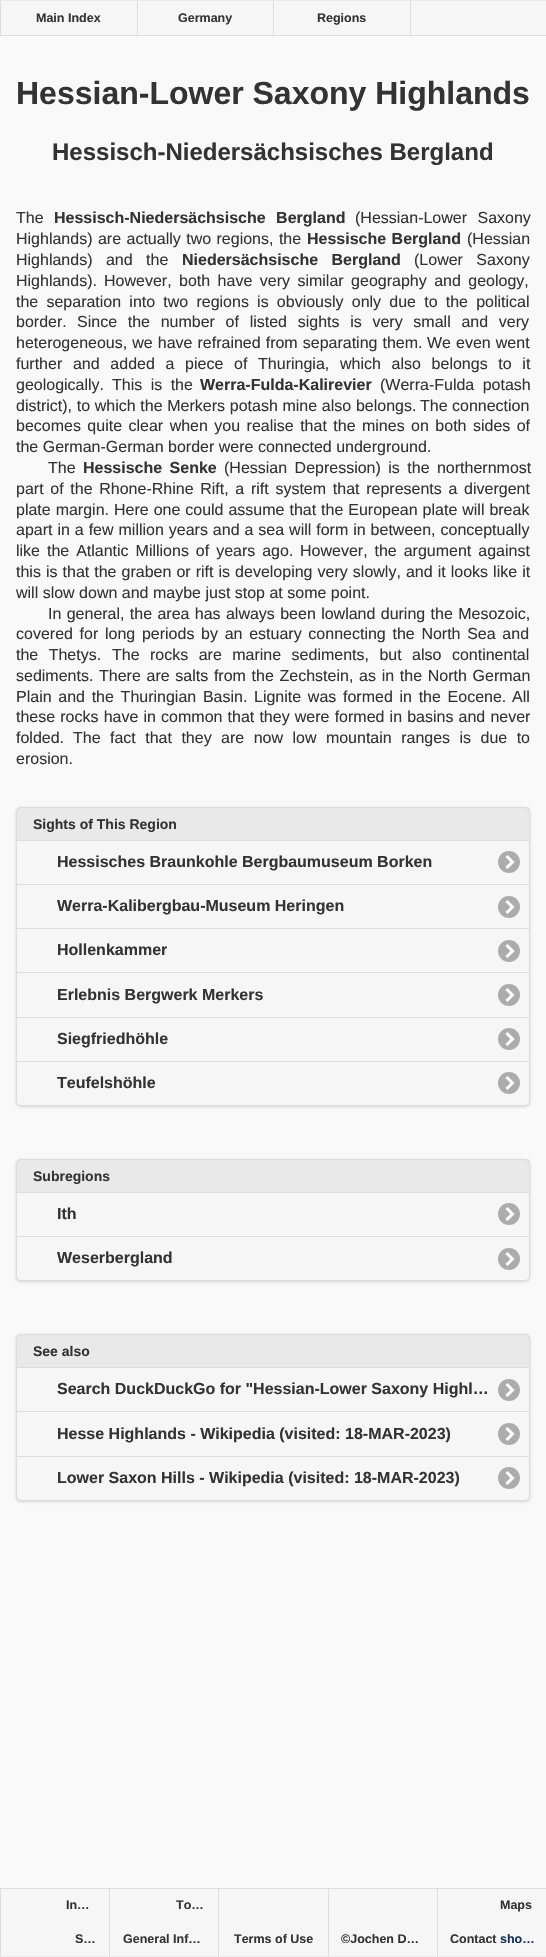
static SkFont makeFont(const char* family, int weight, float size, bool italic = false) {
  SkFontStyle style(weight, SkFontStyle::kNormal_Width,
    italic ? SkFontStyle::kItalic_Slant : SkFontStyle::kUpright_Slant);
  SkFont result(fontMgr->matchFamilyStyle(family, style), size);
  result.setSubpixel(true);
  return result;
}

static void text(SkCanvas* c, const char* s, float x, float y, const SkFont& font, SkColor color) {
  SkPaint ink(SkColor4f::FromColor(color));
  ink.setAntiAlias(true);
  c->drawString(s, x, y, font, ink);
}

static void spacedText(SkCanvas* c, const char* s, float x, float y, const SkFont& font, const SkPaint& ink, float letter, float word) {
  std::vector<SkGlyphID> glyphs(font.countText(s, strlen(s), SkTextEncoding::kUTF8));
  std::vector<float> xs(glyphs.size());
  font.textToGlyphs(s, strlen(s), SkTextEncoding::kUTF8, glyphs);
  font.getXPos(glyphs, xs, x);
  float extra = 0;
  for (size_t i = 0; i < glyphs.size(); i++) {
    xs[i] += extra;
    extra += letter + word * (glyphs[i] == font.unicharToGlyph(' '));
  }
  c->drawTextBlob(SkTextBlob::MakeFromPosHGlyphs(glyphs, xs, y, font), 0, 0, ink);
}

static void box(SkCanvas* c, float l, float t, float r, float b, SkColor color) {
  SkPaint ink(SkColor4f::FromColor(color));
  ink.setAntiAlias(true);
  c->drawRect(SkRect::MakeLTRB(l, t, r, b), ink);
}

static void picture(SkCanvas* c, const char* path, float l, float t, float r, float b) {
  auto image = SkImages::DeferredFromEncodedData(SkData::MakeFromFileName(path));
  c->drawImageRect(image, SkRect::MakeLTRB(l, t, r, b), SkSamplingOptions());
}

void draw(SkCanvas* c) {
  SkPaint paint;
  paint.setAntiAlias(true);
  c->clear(0xfff9f9f9);
  box(c, 0, 0, 546, 1, 0xffe9e9e9);
  box(c, 0, 35, 546, 36, 0xffdddddd);
  box(c, 1, 1, 137, 35, 0xfff6f6f6);
  box(c, 0, 1, 1, 35, 0xffdddddd);
  SkFont face1 = makeFont("Liberation Sans", 700, 12.5f);
  text(c, "Main Index", 36, 22, face1, 0xff333333);
  box(c, 138, 1, 273, 35, 0xfff6f6f6);
  box(c, 137, 1, 138, 35, 0xffdddddd);
  text(c, "Germany", 178, 22, face1, 0xff333333);
  box(c, 274, 1, 410, 35, 0xfff6f6f6);
  box(c, 273, 1, 274, 35, 0xffdddddd);
  text(c, "Regions", 317, 22, face1, 0xff333333);
  box(c, 411, 1, 546, 35, 0xfff6f6f6);
  box(c, 410, 1, 411, 35, 0xffdddddd);
  SkFont face2 = makeFont("Liberation Sans", 700, 32);
  text(c, "Hessian-Lower Saxony Highlands", 16, 104, face2, 0xff333333);
  SkFont face3 = makeFont("Liberation Sans", 700, 24);
  text(c, "Hessisch-Niedersächsisches Bergland", 52, 160, face3, 0xff333333);
  SkFont face4 = makeFont("Liberation Sans", 400, 16);
  text(c, "The", 16, 223, face4, 0xff333333);
  SkFont face5 = makeFont("Liberation Sans", 700, 16);
  paint.setColor(0xff333333);
  spacedText(c, "Hessisch-Niedersächsische Bergland", 54, 223, face5, paint, 0, 6);
  spacedText(c, "(Hessian-Lower Saxony", 355, 223, face4, paint, 0, 6);
  spacedText(c, "Highlands) are actually two regions, the", 16, 244, face4, paint, 0, 1);
  spacedText(c, "Hessische Bergland", 307, 244, face5, paint, 0, 1);
  text(c, "(Hessian", 467, 244, face4, 0xff333333);
  spacedText(c, "Highlands) and the", 16, 265, face4, paint, 0, 9);
  spacedText(c, "Niedersächsische Bergland", 182, 265, face5, paint, 0, 9);
  spacedText(c, "(Lower Saxony", 414, 265, face4, paint, 0, 9);
  text(c, "Highlands).", 16, 286, face4, 0xff333333);
  spacedText(c, "However, both have very similar geography and geology,", 104, 286, face4, paint, 0, 3);
  spacedText(c, "the separation into two regions is obviously only due to the political", 16, 307, face4, paint, 0, 3.75f);
  text(c, "border.", 16, 327, face4, 0xff333333);
  spacedText(c, "Since the number of listed sights is very small and very", 77, 327, face4, paint, 0, 6.25f);
  spacedText(c, "heterogeneous, we have refrained from separating them.", 16, 348, face4, paint, 0, 0.6f);
  spacedText(c, "We even went", 427, 348, face4, paint, 0, 0.6f);
  spacedText(c, "further and added a piece of Thuringia, which also belongs to it", 16, 369, face4, paint, 0, 6.25f);
  text(c, "geologically.", 16, 390, face4, 0xff333333);
  spacedText(c, "This is the", 112, 390, face4, paint, 0, 4);
  text(c, "Werra-Fulda-Kalirevier", 200, 390, face5, 0xff333333);
  spacedText(c, "(Werra-Fulda potash", 380, 390, face4, paint, 0, 4);
  spacedText(c, "district), to which the Merkers potash mine also belongs.", 16, 411, face4, paint, 0, 0.25f);
  text(c, "The connection", 420, 411, face4, 0xff333333);
  spacedText(c, "becomes quite clear when you realise that the mines on both sides of", 16, 431, face4, paint, 0, 2);
  text(c, "the German-German border were connected underground.", 16, 452, face4, 0xff333333);
  text(c, "The", 48, 473, face4, 0xff333333);
  spacedText(c, "Hessische Senke", 83, 473, face5, paint, 0, 3);
  spacedText(c, "(Hessian Depression) is the northernmost", 224, 473, face4, paint, 0, 3);
  spacedText(c, "part of the Rhone-Rhine Rift, a rift system that represents a divergent", 16, 494, face4, paint, 0, 2.25f);
  spacedText(c, "plate margin.", 16, 515, face4, paint, 0, 0.5f);
  spacedText(c, "Here one could assume that the European plate will break", 114, 515, face4, paint, 0, 0.5f);
  spacedText(c, "apart in a few million years and a sea will form in between, conceptually", 16, 535, face4, paint, 0, 0.5f);
  spacedText(c, "like the Atlantic Millions of years ago.", 16, 556, face4, paint, 0, 2.5f);
  spacedText(c, "However, the argument against", 300, 556, face4, paint, 0, 2.5f);
  spacedText(c, "this is that the graben or rift is developing very slowly, and it looks like it", 16, 577, face4, paint, 0, 0.6f);
  text(c, "will slow down and maybe just stop at some point.", 16, 598, face4, 0xff333333);
  spacedText(c, "In general, the area has always been lowland during the Mesozoic,", 48, 619, face4, paint, 0, 0.9f);
  spacedText(c, "covered for long periods by an estuary connecting the North Sea and", 16, 639, face4, paint, 0, 2.25f);
  spacedText(c, "the Thetys.", 16, 660, face4, paint, 0, 6);
  spacedText(c, "The rocks are marine sediments, but also continental", 112, 660, face4, paint, 0, 6);
  text(c, "sediments.", 16, 681, face4, 0xff333333);
  spacedText(c, "There are salts from the Zechstein, as in the North German", 99, 681, face4, paint, 0, 1.25f);
  spacedText(c, "Plain and the Thuringian Basin.", 16, 702, face4, paint, 0, 2.25f);
  spacedText(c, "Lignite was formed in the Eocene.", 254, 702, face4, paint, 0, 2.25f);
  text(c, "All", 512, 702, face4, 0xff333333);
  spacedText(c, "these rocks have in common that they were formed in basins and never", 16, 722, face4, paint, 0, 0.7f);
  text(c, "folded.", 16, 743, face4, 0xff333333);
  spacedText(c, "The fact that they are now low mountain ranges is due to", 73, 743, face4, paint, 0, 5);
  text(c, "erosion.", 16, 764, face4, 0xff333333);
  paint.setColor(0x26000000);
  paint.setMaskFilter(SkMaskFilter::MakeBlur(kNormal_SkBlurStyle, 1.5f));
  c->drawRoundRect(SkRect::MakeLTRB(16, 808, 530, 1107), 5, 5, paint);
  paint.setMaskFilter(nullptr);
  paint.setColor(0xffe9e9e9);
  c->drawPath(SkPathBuilder().moveTo(21, 808).lineTo(525, 808).cubicTo(527, 808, 529, 810, 529, 812).lineTo(529, 840).lineTo(17, 840).lineTo(17, 812).cubicTo(17, 810, 19, 808, 21, 808).close().detach(), paint);
  paint.setColor(0xffdddddd);
  c->drawPath(SkPathBuilder(SkPathFillType::kEvenOdd).moveTo(21, 807).lineTo(525, 807).cubicTo(528, 807, 530, 809, 530, 812).lineTo(530, 840).lineTo(16, 840).lineTo(16, 812).cubicTo(16, 809, 18, 807, 21, 807).close().moveTo(21, 808).lineTo(525, 808).cubicTo(527, 808, 529, 810, 529, 812).lineTo(529, 840).lineTo(17, 840).lineTo(17, 812).cubicTo(17, 810, 19, 808, 21, 808).close().detach(), paint);
  SkFont face6 = makeFont("Liberation Sans", 700, 14);
  text(c, "Sights of This Region", 33, 829, face6, 0xff333333);
  box(c, 17, 841, 529, 884, 0xfff6f6f6);
  box(c, 16, 840, 530, 841, 0xffdddddd);
  box(c, 529, 840, 530, 884, 0xffdddddd);
  box(c, 16, 840, 17, 884, 0xffdddddd);
  text(c, "Hessisches Braunkohle Bergbaumuseum Borken", 57, 867, face5, 0xff333333);
  paint.setColor(0xffacacac);
  c->drawCircle(509, 862, 11, paint);
  picture(c, "img_01.png", 505, 855, 515, 869);
  box(c, 17, 885, 529, 928, 0xfff6f6f6);
  box(c, 16, 884, 530, 885, 0xffdddddd);
  box(c, 529, 884, 530, 928, 0xffdddddd);
  box(c, 16, 884, 17, 928, 0xffdddddd);
  text(c, "Werra-Kalibergbau-Museum Heringen", 57, 911, face5, 0xff333333);
  c->drawCircle(509, 907, 11, paint);
  picture(c, "img_01.png", 505, 900, 515, 914);
  box(c, 17, 929, 529, 972, 0xfff6f6f6);
  box(c, 16, 928, 530, 929, 0xffdddddd);
  box(c, 529, 928, 530, 972, 0xffdddddd);
  box(c, 16, 928, 17, 972, 0xffdddddd);
  text(c, "Hollenkammer", 57, 955, face5, 0xff333333);
  c->drawCircle(509, 951, 11, paint);
  picture(c, "img_01.png", 505, 944, 515, 958);
  box(c, 17, 973, 529, 1017, 0xfff6f6f6);
  box(c, 16, 972, 530, 973, 0xffdddddd);
  box(c, 529, 972, 530, 1017, 0xffdddddd);
  box(c, 16, 972, 17, 1017, 0xffdddddd);
  text(c, "Erlebnis Bergwerk Merkers", 57, 1000, face5, 0xff333333);
  c->drawCircle(509, 995, 11, paint);
  picture(c, "img_01.png", 505, 988, 515, 1002);
  box(c, 17, 1018, 529, 1061, 0xfff6f6f6);
  box(c, 16, 1017, 530, 1018, 0xffdddddd);
  box(c, 529, 1017, 530, 1061, 0xffdddddd);
  box(c, 16, 1017, 17, 1061, 0xffdddddd);
  text(c, "Siegfriedhöhle", 57, 1044, face5, 0xff333333);
  c->drawCircle(509, 1039, 11, paint);
  picture(c, "img_01.png", 505, 1032, 515, 1046);
  paint.setColor(0xfff6f6f6);
  c->drawPath(SkPathBuilder().moveTo(16.5f, 1061.5f).lineTo(529.5f, 1061.5f).lineTo(529.5f, 1101).cubicTo(529.5f, 1103.5f, 527.5f, 1105.5f, 525, 1105.5f).lineTo(21, 1105.5f).cubicTo(18.5f, 1105.5f, 16.5f, 1103.5f, 16.5f, 1101).close().detach(), paint);
  paint.setStyle(SkPaint::kStroke_Style);
  paint.setStrokeWidth(1);
  paint.setColor(0xffdddddd);
  c->drawPath(SkPathBuilder().moveTo(16.5f, 1061.5f).lineTo(529.5f, 1061.5f).lineTo(529.5f, 1101).cubicTo(529.5f, 1103.5f, 527.5f, 1105.5f, 525, 1105.5f).lineTo(21, 1105.5f).cubicTo(18.5f, 1105.5f, 16.5f, 1103.5f, 16.5f, 1101).close().detach(), paint);
  text(c, "Teufelshöhle", 57, 1088, face5, 0xff333333);
  paint.setStyle(SkPaint::kFill_Style);
  paint.setColor(0xffacacac);
  c->drawCircle(509, 1083, 11, paint);
  picture(c, "img_01.png", 505, 1076, 515, 1090);
  paint.setColor(0x26000000);
  paint.setMaskFilter(SkMaskFilter::MakeBlur(kNormal_SkBlurStyle, 1.5f));
  c->drawRoundRect(SkRect::MakeLTRB(16, 1160, 530, 1282), 5, 5, paint);
  paint.setMaskFilter(nullptr);
  paint.setColor(0xffe9e9e9);
  c->drawPath(SkPathBuilder().moveTo(21, 1160).lineTo(525, 1160).cubicTo(527, 1160, 529, 1162, 529, 1164).lineTo(529, 1192).lineTo(17, 1192).lineTo(17, 1164).cubicTo(17, 1162, 19, 1160, 21, 1160).close().detach(), paint);
  paint.setColor(0xffdddddd);
  c->drawPath(SkPathBuilder(SkPathFillType::kEvenOdd).moveTo(21, 1159).lineTo(525, 1159).cubicTo(528, 1159, 530, 1161, 530, 1164).lineTo(530, 1192).lineTo(16, 1192).lineTo(16, 1164).cubicTo(16, 1161, 18, 1159, 21, 1159).close().moveTo(21, 1160).lineTo(525, 1160).cubicTo(527, 1160, 529, 1162, 529, 1164).lineTo(529, 1192).lineTo(17, 1192).lineTo(17, 1164).cubicTo(17, 1162, 19, 1160, 21, 1160).close().detach(), paint);
  text(c, "Subregions", 33, 1181, face6, 0xff333333);
  box(c, 17, 1193, 529, 1236, 0xfff6f6f6);
  box(c, 16, 1192, 530, 1193, 0xffdddddd);
  box(c, 529, 1192, 530, 1236, 0xffdddddd);
  box(c, 16, 1192, 17, 1236, 0xffdddddd);
  text(c, "Ith", 57, 1219, face5, 0xff333333);
  paint.setColor(0xffacacac);
  c->drawCircle(509, 1214, 11, paint);
  picture(c, "img_01.png", 505, 1207, 515, 1221);
  paint.setColor(0xfff6f6f6);
  c->drawPath(SkPathBuilder().moveTo(16.5f, 1236.5f).lineTo(529.5f, 1236.5f).lineTo(529.5f, 1276).cubicTo(529.5f, 1278.5f, 527.5f, 1280.5f, 525, 1280.5f).lineTo(21, 1280.5f).cubicTo(18.5f, 1280.5f, 16.5f, 1278.5f, 16.5f, 1276).close().detach(), paint);
  paint.setStyle(SkPaint::kStroke_Style);
  paint.setColor(0xffdddddd);
  c->drawPath(SkPathBuilder().moveTo(16.5f, 1236.5f).lineTo(529.5f, 1236.5f).lineTo(529.5f, 1276).cubicTo(529.5f, 1278.5f, 527.5f, 1280.5f, 525, 1280.5f).lineTo(21, 1280.5f).cubicTo(18.5f, 1280.5f, 16.5f, 1278.5f, 16.5f, 1276).close().detach(), paint);
  text(c, "Weserbergland", 57, 1263, face5, 0xff333333);
  paint.setStyle(SkPaint::kFill_Style);
  paint.setColor(0xffacacac);
  c->drawCircle(509, 1259, 11, paint);
  picture(c, "img_01.png", 505, 1252, 515, 1266);
  paint.setColor(0x26000000);
  paint.setMaskFilter(SkMaskFilter::MakeBlur(kNormal_SkBlurStyle, 1.5f));
  c->drawRoundRect(SkRect::MakeLTRB(16, 1335, 530, 1502), 5, 5, paint);
  paint.setMaskFilter(nullptr);
  paint.setColor(0xffe9e9e9);
  c->drawPath(SkPathBuilder().moveTo(21, 1335).lineTo(525, 1335).cubicTo(527, 1335, 529, 1337, 529, 1339).lineTo(529, 1367).lineTo(17, 1367).lineTo(17, 1339).cubicTo(17, 1337, 19, 1335, 21, 1335).close().detach(), paint);
  paint.setColor(0xffdddddd);
  c->drawPath(SkPathBuilder(SkPathFillType::kEvenOdd).moveTo(21, 1334).lineTo(525, 1334).cubicTo(528, 1334, 530, 1336, 530, 1339).lineTo(530, 1367).lineTo(16, 1367).lineTo(16, 1339).cubicTo(16, 1336, 18, 1334, 21, 1334).close().moveTo(21, 1335).lineTo(525, 1335).cubicTo(527, 1335, 529, 1337, 529, 1339).lineTo(529, 1367).lineTo(17, 1367).lineTo(17, 1339).cubicTo(17, 1337, 19, 1335, 21, 1335).close().detach(), paint);
  text(c, "See also", 33, 1356, face6, 0xff333333);
  box(c, 17, 1368, 529, 1411, 0xfff6f6f6);
  box(c, 16, 1367, 530, 1368, 0xffdddddd);
  box(c, 529, 1367, 530, 1411, 0xffdddddd);
  box(c, 16, 1367, 17, 1411, 0xffdddddd);
  text(c, "Search DuckDuckGo for \"Hessian-Lower Saxony Highl…", 57, 1394, face5, 0xff333333);
  paint.setColor(0xffacacac);
  c->drawCircle(509, 1390, 11, paint);
  picture(c, "img_01.png", 505, 1383, 515, 1397);
  box(c, 17, 1412, 529, 1456, 0xfff6f6f6);
  box(c, 16, 1411, 530, 1412, 0xffdddddd);
  box(c, 529, 1411, 530, 1456, 0xffdddddd);
  box(c, 16, 1411, 17, 1456, 0xffdddddd);
  text(c, "Hesse Highlands - Wikipedia (visited: 18-MAR-2023)", 57, 1439, face5, 0xff333333);
  c->drawCircle(509, 1434, 11, paint);
  picture(c, "img_01.png", 505, 1427, 515, 1441);
  paint.setColor(0xfff6f6f6);
  c->drawPath(SkPathBuilder().moveTo(16.5f, 1456.5f).lineTo(529.5f, 1456.5f).lineTo(529.5f, 1496).cubicTo(529.5f, 1498.5f, 527.5f, 1500.5f, 525, 1500.5f).lineTo(21, 1500.5f).cubicTo(18.5f, 1500.5f, 16.5f, 1498.5f, 16.5f, 1496).close().detach(), paint);
  paint.setStyle(SkPaint::kStroke_Style);
  paint.setColor(0xffdddddd);
  c->drawPath(SkPathBuilder().moveTo(16.5f, 1456.5f).lineTo(529.5f, 1456.5f).lineTo(529.5f, 1496).cubicTo(529.5f, 1498.5f, 527.5f, 1500.5f, 525, 1500.5f).lineTo(21, 1500.5f).cubicTo(18.5f, 1500.5f, 16.5f, 1498.5f, 16.5f, 1496).close().detach(), paint);
  text(c, "Lower Saxon Hills - Wikipedia (visited: 18-MAR-2023)", 57, 1483, face5, 0xff333333);
  paint.setStyle(SkPaint::kFill_Style);
  paint.setColor(0xffacacac);
  c->drawCircle(509, 1478, 11, paint);
  picture(c, "img_01.png", 505, 1471, 515, 1485);
  box(c, 0, 1956, 546, 1957, 0xffe9e9e9);
  box(c, 0, 1888, 546, 1889, 0xffdddddd);
  box(c, 1, 1889, 109, 1956, 0xfff6f6f6);
  box(c, 0, 1889, 1, 1956, 0xffdddddd);
  text(c, "In…", 66, 1909, face1, 0xff333333);
  box(c, 110, 1889, 218, 1956, 0xfff6f6f6);
  box(c, 109, 1889, 110, 1956, 0xffdddddd);
  text(c, "To…", 176, 1909, face1, 0xff333333);
  box(c, 219, 1889, 328, 1956, 0xfff6f6f6);
  box(c, 218, 1889, 219, 1956, 0xffdddddd);
  box(c, 329, 1889, 437, 1956, 0xfff6f6f6);
  box(c, 328, 1889, 329, 1956, 0xffdddddd);
  box(c, 438, 1889, 546, 1956, 0xfff6f6f6);
  box(c, 437, 1889, 438, 1956, 0xffdddddd);
  text(c, "Maps", 500, 1909, face1, 0xff333333);
  text(c, "S…", 75, 1943, face1, 0xff333333);
  text(c, "General Inf…", 123, 1943, face1, 0xff333333);
  text(c, "Terms of Use", 234, 1943, face1, 0xff333333);
  text(c, "©Jochen D…", 341, 1943, face1, 0xff333333);
  text(c, "Contact", 450, 1943, face1, 0xff333333);
  text(c, "sho…", 500, 1943, face1, 0xff13305b);
}
